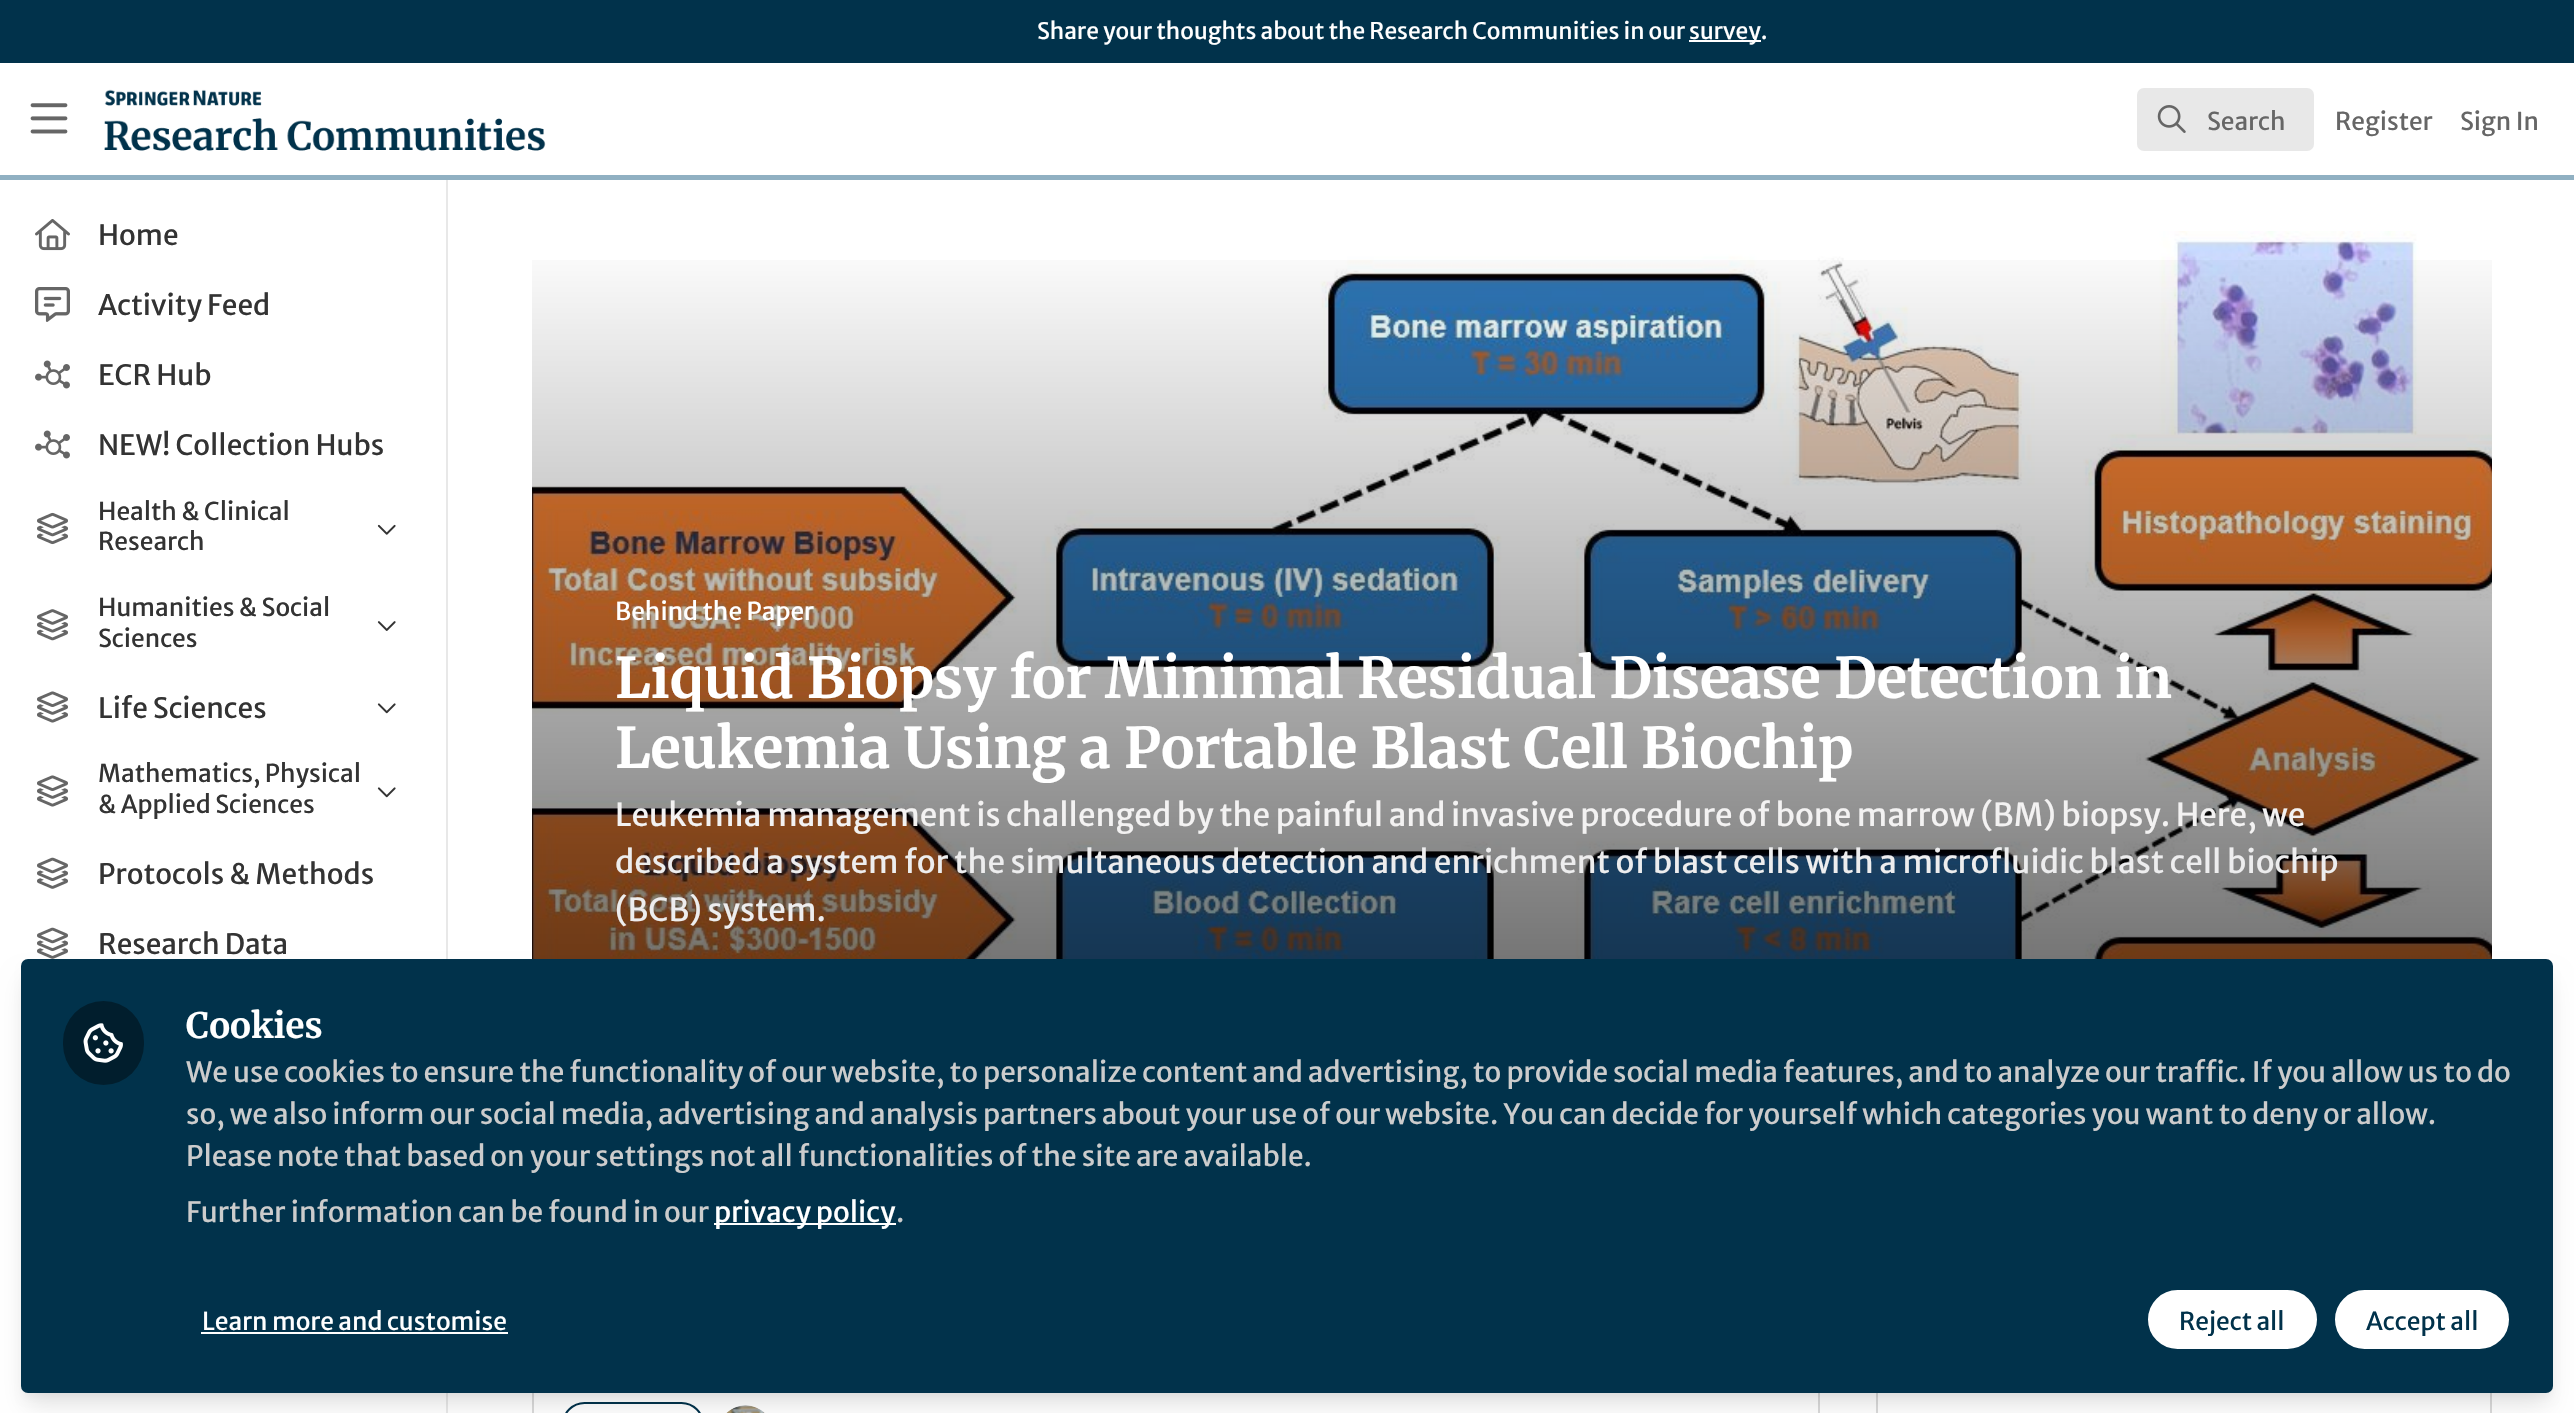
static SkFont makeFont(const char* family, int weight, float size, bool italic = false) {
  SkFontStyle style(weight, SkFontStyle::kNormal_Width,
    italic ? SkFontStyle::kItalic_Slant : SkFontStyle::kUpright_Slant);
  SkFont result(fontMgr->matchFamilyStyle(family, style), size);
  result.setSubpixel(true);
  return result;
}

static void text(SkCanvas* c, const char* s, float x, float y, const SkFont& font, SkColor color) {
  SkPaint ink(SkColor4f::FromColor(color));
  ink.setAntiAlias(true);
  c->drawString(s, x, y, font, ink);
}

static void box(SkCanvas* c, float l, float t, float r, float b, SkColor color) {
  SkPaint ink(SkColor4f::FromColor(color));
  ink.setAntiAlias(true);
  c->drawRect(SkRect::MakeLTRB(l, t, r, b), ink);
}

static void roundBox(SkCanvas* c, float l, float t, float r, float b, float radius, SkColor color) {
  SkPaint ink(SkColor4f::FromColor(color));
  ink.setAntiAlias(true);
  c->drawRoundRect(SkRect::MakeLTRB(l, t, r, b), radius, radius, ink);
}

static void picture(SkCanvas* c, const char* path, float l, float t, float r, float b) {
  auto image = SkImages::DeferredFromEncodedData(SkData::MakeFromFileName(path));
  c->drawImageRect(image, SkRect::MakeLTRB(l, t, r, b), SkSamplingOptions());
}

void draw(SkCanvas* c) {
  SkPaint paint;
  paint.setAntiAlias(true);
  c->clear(0xffffffff);
  box(c, 0, 0, 2574, 63, 0xff01324b);
  SkFont face1 = makeFont("Merriweather Sans", 400, 22.75f);
  text(c, "Share your thoughts about the Research Communities in our", 1037, 39, face1, 0xffffffff);
  box(c, 1689, 40, 1761, 42, 0xffffffff);
  text(c, "survey.", 1689, 39, face1, 0xffffffff);
  box(c, 446, 175, 448, 1413, 0xffe8e8e8);
  box(c, 0, 175, 2574, 180, 0xff90b0c2);
  picture(c, "img_01.png", 30, 103, 68, 134);
  picture(c, "img_02.png", 104, 89, 546, 151);
  roundBox(c, 2137, 88, 2314, 151, 7, 0xffe8e8e8);
  picture(c, "img_03.png", 2157, 105, 2186, 133);
  SkFont face2 = makeFont("Merriweather Sans", 400, 24.5f);
  text(c, "Search", 2207, 130, face2, 0xff666666);
  text(c, "Register", 2335, 130, face2, 0xff666666);
  text(c, "Sign In", 2460, 130, face2, 0xff666666);
  picture(c, "img_04.png", 35, 219, 70, 251);
  SkFont face3 = makeFont("Merriweather Sans", 400, 28);
  text(c, "Home", 98, 245, face3, 0xff333333);
  picture(c, "img_05.png", 35, 287, 70, 322);
  text(c, "Activity Feed", 98, 315, face3, 0xff333333);
  picture(c, "img_06.png", 35, 360, 70, 389);
  text(c, "ECR Hub", 98, 385, face3, 0xff333333);
  picture(c, "img_06.png", 35, 430, 70, 459);
  text(c, "NEW! Collection Hubs", 98, 455, face3, 0xff333333);
  picture(c, "img_07.png", 37, 512, 68, 545);
  text(c, "Health & Clinical", 98, 520, face2, 0xff333333);
  text(c, "Research", 98, 550, face2, 0xff333333);
  picture(c, "img_08.png", 377, 524, 396, 535);
  picture(c, "img_09.png", 37, 609, 68, 641);
  text(c, "Humanities & Social", 98, 616, face2, 0xff333333);
  text(c, "Sciences", 98, 647, face2, 0xff333333);
  picture(c, "img_10.png", 377, 621, 396, 631);
  picture(c, "img_11.png", 37, 691, 68, 723);
  text(c, "Life Sciences", 98, 718, face3, 0xff333333);
  picture(c, "img_12.png", 377, 703, 396, 714);
  picture(c, "img_11.png", 37, 775, 68, 807);
  text(c, "Mathematics, Physical", 98, 782, face2, 0xff333333);
  text(c, "& Applied Sciences", 98, 813, face2, 0xff333333);
  picture(c, "img_12.png", 377, 787, 396, 798);
  picture(c, "img_13.png", 37, 857, 68, 889);
  text(c, "Protocols & Methods", 98, 884, face3, 0xff333333);
  picture(c, "img_13.png", 37, 927, 68, 959);
  text(c, "Research Data", 98, 954, face3, 0xff333333);
  picture(c, "img_14.png", 532, 231, 2492, 959);
  {
    const SkColor colors[] = {0x00000000, 0xcc000000};
    const float stops[] = {0, 1};
    const SkPoint ends[] = {{1512, 231}, {1512, 1313}};
    paint.setShader(SkGradientShader::MakeLinear(ends, colors, stops, 2, SkTileMode::kClamp));
    paint.setAlpha(255);
  }
  c->drawRect(SkRect::MakeLTRB(532, 260, 2492, 959), paint);
  text(c, "Behind the Paper", 615, 620, face2, 0xffffffff);
  SkFont face4 = makeFont("Merriweather", 700, 56);
  text(c, "Liquid Biopsy for Minimal Residual Disease Detection in", 615, 698, face4, 0xffffffff);
  text(c, "Leukemia Using a Portable Blast Cell Biochip", 615, 768, face4, 0xffffffff);
  SkFont face5 = makeFont("Merriweather Sans", 400, 31.5f);
  text(c, "Leukemia management is challenged by the painful and invasive procedure of bone marrow (BM) biopsy. Here, we", 615, 826, face5, 0xfff3f2f2);
  text(c, "described a system for the simultaneous detection and enrichment of blast cells with a microfluidic blast cell biochip", 615, 873, face5, 0xffededee);
  text(c, "(BCB) system.", 615, 921, face5, 0xffededee);
  paint.setStyle(SkPaint::kStroke_Style);
  paint.setStrokeWidth(2);
  paint.setShader(nullptr);
  paint.setColor(0xffdadada);
  c->drawRect(SkRect::MakeLTRB(533, 1370, 1819, 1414), paint);
  paint.setColor(0xff01324b);
  c->drawRoundRect(SkRect::MakeLTRB(563, 1403, 703, 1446), 30.5f, 30.5f, paint);
  picture(c, "img_15.png", 726, 1405, 765, 1413);
  paint.setColor(0xffdadada);
  c->drawRect(SkRect::MakeLTRB(1877, 1370, 2491, 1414), paint);
  paint.setStyle(SkPaint::kFill_Style);
  paint.setColor(0x0d000000);
  paint.setMaskFilter(SkMaskFilter::MakeBlur(kNormal_SkBlurStyle, 5));
  c->drawRoundRect(SkRect::MakeLTRB(25, 970, 2550, 1397), 4, 4, paint);
  paint.setMaskFilter(nullptr);
  paint.setColor(0x1a000000);
  paint.setMaskFilter(SkMaskFilter::MakeBlur(kNormal_SkBlurStyle, 13));
  c->drawRoundRect(SkRect::MakeLTRB(26, 982, 2548, 1405), 2, 2, paint);
  paint.setMaskFilter(nullptr);
  roundBox(c, 21, 959, 2553, 1393, 7, 0xff01324b);
  roundBox(c, 63, 1001, 144, 1085, 40.5f, 0xff011e2d);
  picture(c, "img_16.png", 83, 1023, 123, 1063);
  SkFont face6 = makeFont("Merriweather", 700, 35);
  text(c, "Cookies", 186, 1038, face6, 0xffffffff);
  text(c, "We use cookies to ensure the functionality of our website, to personalize content and advertising, to provide social media features, and to analyze our traffic. If you allow us to do", 186, 1082, face3, 0xffcccccc);
  text(c, "so, we also inform our social media, advertising and analysis partners about your use of our website. You can decide for yourself which categories you want to deny or allow.", 186, 1124, face3, 0xffcccccc);
  text(c, "Please note that based on your settings not all functionalities of the site are available.", 186, 1166, face3, 0xffcccccc);
  text(c, "Further information can be found in our", 186, 1222, face3, 0xffcccccc);
  box(c, 714, 1223, 896, 1225, 0xffffffff);
  text(c, "privacy policy", 714, 1222, face3, 0xffffffff);
  text(c, ".", 896, 1222, face3, 0xffcccccc);
  text(c, "Learn more and customise", 202, 1330, face2, 0xffffffff);
  box(c, 201, 1332, 508, 1334, 0xffffffff);
  paint.setColor(0xffffffff);
  c->drawRoundRect(SkRect::MakeLTRB(2147, 1289, 2318, 1350), 30.5f, 30.5f, paint);
  paint.setStyle(SkPaint::kStroke_Style);
  paint.setColor(0xff01324b);
  c->drawRoundRect(SkRect::MakeLTRB(2147, 1289, 2318, 1350), 30.5f, 30.5f, paint);
  text(c, "Reject all", 2179, 1330, face2, 0xff01324b);
  paint.setStyle(SkPaint::kFill_Style);
  paint.setColor(0xffffffff);
  c->drawRoundRect(SkRect::MakeLTRB(2334, 1289, 2510, 1350), 30.5f, 30.5f, paint);
  paint.setStyle(SkPaint::kStroke_Style);
  paint.setColor(0xff01324b);
  c->drawRoundRect(SkRect::MakeLTRB(2334, 1289, 2510, 1350), 30.5f, 30.5f, paint);
  text(c, "Accept all", 2366, 1330, face2, 0xff01324b);
}
